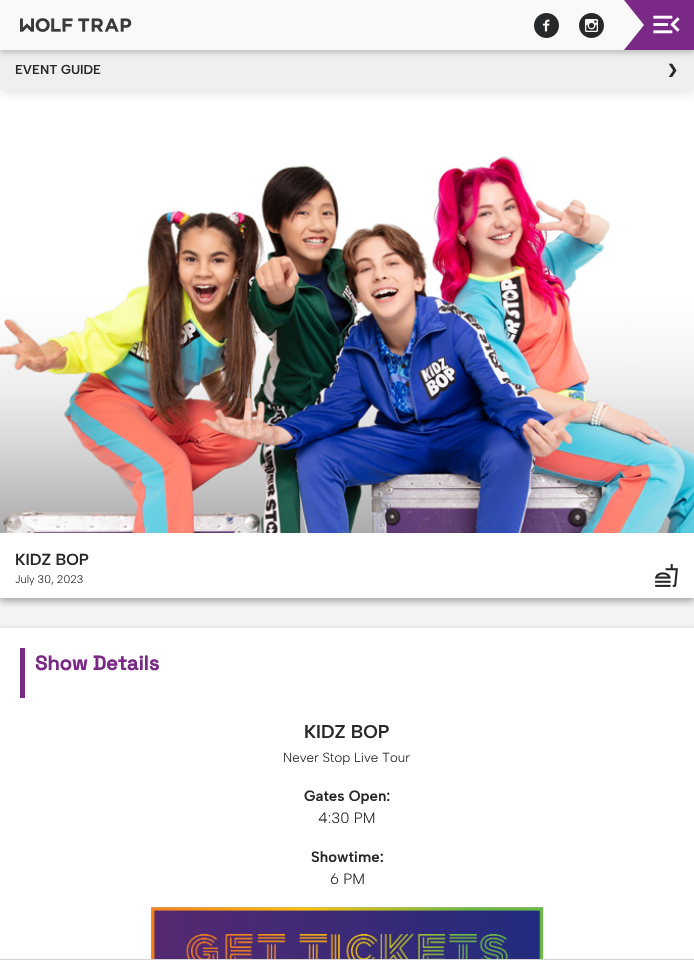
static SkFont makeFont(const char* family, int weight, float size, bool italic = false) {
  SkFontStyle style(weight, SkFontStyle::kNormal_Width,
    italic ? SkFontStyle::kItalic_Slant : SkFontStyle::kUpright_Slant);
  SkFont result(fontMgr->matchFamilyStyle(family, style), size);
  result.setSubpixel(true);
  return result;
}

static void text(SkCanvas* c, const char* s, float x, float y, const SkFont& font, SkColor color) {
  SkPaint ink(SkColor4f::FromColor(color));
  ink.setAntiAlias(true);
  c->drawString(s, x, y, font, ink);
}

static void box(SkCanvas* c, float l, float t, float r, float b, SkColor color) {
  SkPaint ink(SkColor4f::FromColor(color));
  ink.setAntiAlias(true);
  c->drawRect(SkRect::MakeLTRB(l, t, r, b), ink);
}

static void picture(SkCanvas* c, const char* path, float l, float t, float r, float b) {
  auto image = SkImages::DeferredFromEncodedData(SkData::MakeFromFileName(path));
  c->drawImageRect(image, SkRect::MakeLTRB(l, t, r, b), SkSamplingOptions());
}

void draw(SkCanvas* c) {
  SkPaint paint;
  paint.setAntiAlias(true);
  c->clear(0xfff4f4f4);
  paint.setColor(0x59000000);
  paint.setMaskFilter(SkMaskFilter::MakeBlur(kNormal_SkBlurStyle, 3.5f));
  c->drawRect(SkRect::MakeLTRB(0, 536, 694, 601), paint);
  paint.setMaskFilter(nullptr);
  picture(c, "img_05.png", 0, 90, 694, 533);
  paint.setColor(0x12333333);
  paint.setMaskFilter(SkMaskFilter::MakeBlur(kNormal_SkBlurStyle, 5));
  c->drawRect(SkRect::MakeLTRB(0, 53, 694, 93), paint);
  paint.setMaskFilter(nullptr);
  paint.setMaskFilter(SkMaskFilter::MakeBlur(kNormal_SkBlurStyle, 5));
  c->drawRect(SkRect::MakeLTRB(0, 53, 694, 93), paint);
  paint.setMaskFilter(nullptr);
  box(c, 0, 50, 694, 90, 0xffefefef);
  paint.setColor(0x33000000);
  paint.setMaskFilter(SkMaskFilter::MakeBlur(kNormal_SkBlurStyle, 2.5f));
  c->drawRect(SkRect::MakeLTRB(0, 3, 694, 53), paint);
  paint.setMaskFilter(nullptr);
  box(c, 0, 0, 624, 50, 0xfff9f9f9);
  picture(c, "img_01.png", 20, 18, 132, 32);
  picture(c, "img_02.png", 534, 13, 559, 38);
  picture(c, "img_03.png", 579, 13, 604, 38);
  box(c, 624, 0, 694, 50, 0xff7a2987);
  paint.setColor(0xfff9f9f9);
  c->drawPath(SkPathBuilder().moveTo(624, 50).lineTo(624, 0).lineTo(644, 25).close().detach(), paint);
  picture(c, "img_04.png", 653, 15, 680, 34);
  SkFont face1 = makeFont("Albert Sans", 600, 13);
  text(c, "EVENT GUIDE", 15, 74, face1, 0xff272829);
  SkFont face2 = makeFont("DejaVu Sans", 700, 13);
  text(c, "❯", 667, 74, face2, 0xff272829);
  box(c, 0, 533, 694, 598, 0xffffffff);
  SkFont face3 = makeFont("Albert Sans", 600, 16);
  text(c, "KIDZ BOP", 15, 565, face3, 0xff272829);
  SkFont face4 = makeFont("Albert Sans", 300, 11);
  text(c, "July 30, 2023", 15, 583, face4, 0xff272829);
  picture(c, "img_06.png", 655, 564, 678, 587);
  paint.setColor(0x59000000);
  paint.setMaskFilter(SkMaskFilter::MakeBlur(kNormal_SkBlurStyle, 3.5f));
  c->drawRect(SkRect::MakeLTRB(0, 631, 694, 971), paint);
  paint.setMaskFilter(nullptr);
  box(c, 0, 628, 694, 959, 0xffffffff);
  box(c, 20, 648, 25, 698, 0xff7a2987);
  SkFont face5 = makeFont("Space Grotesk", 700, 20);
  text(c, "Show Details", 35, 670, face5, 0xff7a2987);
  SkFont face6 = makeFont("Albert Sans", 600, 18.5f);
  text(c, "KIDZ BOP", 304, 738, face6, 0xff272829);
  SkFont face7 = makeFont("Albert Sans", 300, 13.25f);
  text(c, "Never Stop Live Tour", 283, 762, face7, 0xff272829);
  SkFont face8 = makeFont("Albert Sans", 600, 15);
  text(c, "Gates Open:", 304, 801, face8, 0xff272829);
  SkFont face9 = makeFont("Albert Sans", 300, 15);
  text(c, "4:30 PM", 318, 823, face9, 0xff272829);
  text(c, "Showtime:", 311, 862, face8, 0xff272829);
  text(c, "6 PM", 330, 884, face9, 0xff272829);
  picture(c, "img_07.png", 151, 907, 544, 959);
  box(c, 0, 959, 694, 960, 0xffd3d3d3);
}
